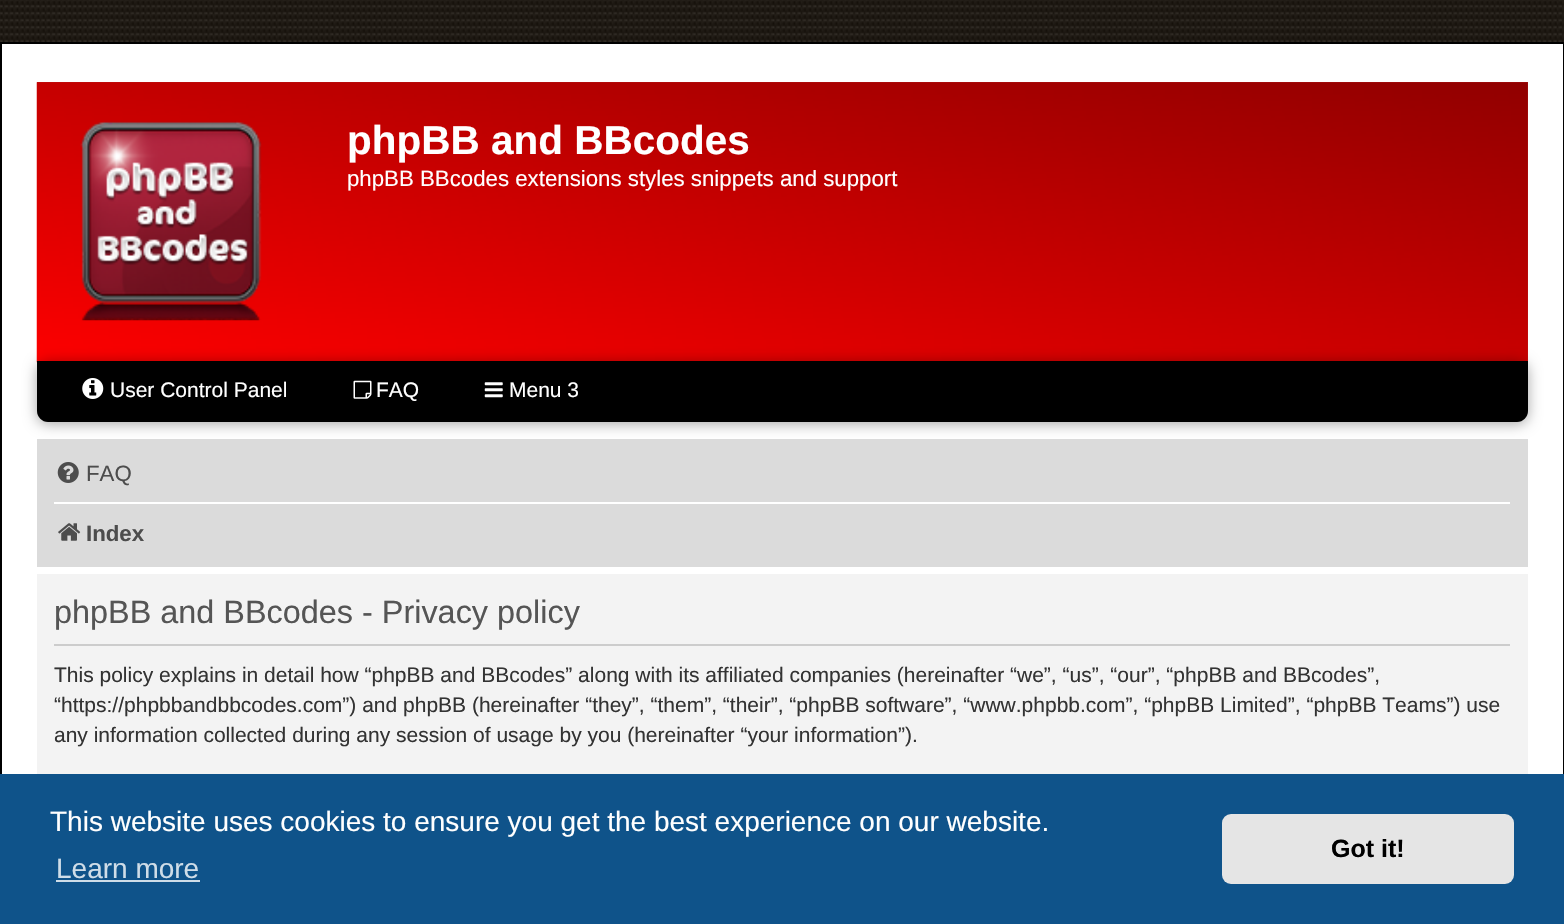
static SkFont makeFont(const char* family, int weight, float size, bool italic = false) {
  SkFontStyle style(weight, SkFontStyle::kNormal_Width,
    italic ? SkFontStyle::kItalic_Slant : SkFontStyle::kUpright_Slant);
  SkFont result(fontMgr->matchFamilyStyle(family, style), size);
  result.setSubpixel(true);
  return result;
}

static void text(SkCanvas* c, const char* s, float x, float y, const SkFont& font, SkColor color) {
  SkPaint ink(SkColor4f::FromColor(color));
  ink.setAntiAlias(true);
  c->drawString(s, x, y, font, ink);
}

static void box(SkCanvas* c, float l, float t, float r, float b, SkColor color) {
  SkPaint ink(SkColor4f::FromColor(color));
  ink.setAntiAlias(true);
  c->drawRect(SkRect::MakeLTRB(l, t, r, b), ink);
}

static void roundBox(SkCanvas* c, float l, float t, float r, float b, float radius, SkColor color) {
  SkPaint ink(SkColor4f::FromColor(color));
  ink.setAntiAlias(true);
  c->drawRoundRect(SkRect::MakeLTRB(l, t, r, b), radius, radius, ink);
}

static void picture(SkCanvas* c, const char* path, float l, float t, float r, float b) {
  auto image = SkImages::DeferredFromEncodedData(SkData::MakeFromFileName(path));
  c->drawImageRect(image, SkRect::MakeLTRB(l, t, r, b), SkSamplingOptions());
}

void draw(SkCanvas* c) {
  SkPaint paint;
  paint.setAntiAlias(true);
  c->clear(0xffffffff);
  picture(c, "img_01.png", 0, 0, 1564, 21);
  picture(c, "img_01.png", 0, 21, 1564, 42);
  paint.setStyle(SkPaint::kStroke_Style);
  paint.setStrokeWidth(2);
  paint.setColor(0xff000000);
  c->drawRect(SkRect::MakeLTRB(1, 43, 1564, 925), paint);
  box(c, 37, 82, 1528, 361, 0xffb22222);
  picture(c, "img_02.png", 36, 82, 1528, 363);
  picture(c, "img_03.png", 80, 121, 262, 321);
  SkFont face1 = makeFont("Liberation Sans", 700, 40.5f);
  text(c, "phpBB and BBcodes", 347, 154, face1, 0xffffffff);
  SkFont face2 = makeFont("Liberation Sans", 400, 22.25f);
  text(c, "phpBB BBcodes extensions styles snippets and support", 347, 186, face2, 0xffffffff);
  box(c, 37, 439, 1528, 567, 0xffdbdbdb);
  paint.setStyle(SkPaint::kFill_Style);
  paint.setColor(0x59000000);
  paint.setMaskFilter(SkMaskFilter::MakeBlur(kNormal_SkBlurStyle, 7));
  c->drawRoundRect(SkRect::MakeLTRB(37, 362, 1528, 424), 11, 11, paint);
  paint.setMaskFilter(nullptr);
  paint.setColor(0xff000000);
  c->drawPath(SkPathBuilder().moveTo(37, 361).lineTo(1528, 361).lineTo(1528, 411).cubicTo(1528, 417, 1523, 422, 1517, 422).lineTo(48, 422).cubicTo(42, 422, 37, 417, 37, 411).close().detach(), paint);
  picture(c, "img_04.png", 82, 378, 104, 399);
  SkFont face3 = makeFont("Liberation Sans", 400, 21);
  text(c, "User Control Panel", 110, 397, face3, 0xffffffff);
  picture(c, "img_05.png", 353, 380, 372, 399);
  text(c, "FAQ", 376, 397, face3, 0xffffffff);
  picture(c, "img_06.png", 484, 382, 503, 398);
  text(c, "Menu 3", 509, 397, face3, 0xffffffff);
  picture(c, "img_07.png", 57, 462, 79, 483);
  text(c, "FAQ", 86, 481, face2, 0xff4d4d4d);
  box(c, 54, 502, 1510, 504, 0xffffffff);
  picture(c, "img_08.png", 58, 523, 81, 541);
  SkFont face4 = makeFont("Liberation Sans", 700, 22.25f);
  text(c, "Index", 86, 541, face4, 0xff4d4d4d);
  box(c, 37, 574, 1528, 774, 0xfff3f3f3);
  box(c, 54, 644, 1510, 646, 0xffcccccc);
  SkFont face5 = makeFont("Liberation Sans", 400, 32.4f);
  text(c, "phpBB and BBcodes - Privacy policy", 54, 623, face5, 0xff555555);
  text(c, "This policy explains in detail how “phpBB and BBcodes” along with its affiliated companies (hereinafter “we”, “us”, “our”, “phpBB and BBcodes”,", 54, 682, face3, 0xff333333);
  text(c, "“https://phpbbandbbcodes.com”) and phpBB (hereinafter “they”, “them”, “their”, “phpBB software”, “www.phpbb.com”, “phpBB Limited”, “phpBB Teams”) use", 54, 712, face3, 0xff333333);
  text(c, "any information collected during any session of usage by you (hereinafter “your information”).", 54, 742, face3, 0xff333333);
  box(c, 0, 774, 1564, 924, 0xff0f538a);
  SkFont face6 = makeFont("Liberation Sans", 400, 28);
  text(c, "This website uses cookies to ensure you get the best experience on our website.", 50, 831, face6, 0xffffffff);
  text(c, "Learn more", 56, 878, face6, 0xffcfdde8);
  box(c, 56, 880, 200, 882, 0xffcfdde8);
  roundBox(c, 1222, 814, 1514, 884, 9, 0xffe5e5e5);
  SkFont face7 = makeFont("Liberation Sans", 700, 25);
  text(c, "Got it!", 1331, 857, face7, 0xff000000);
}
